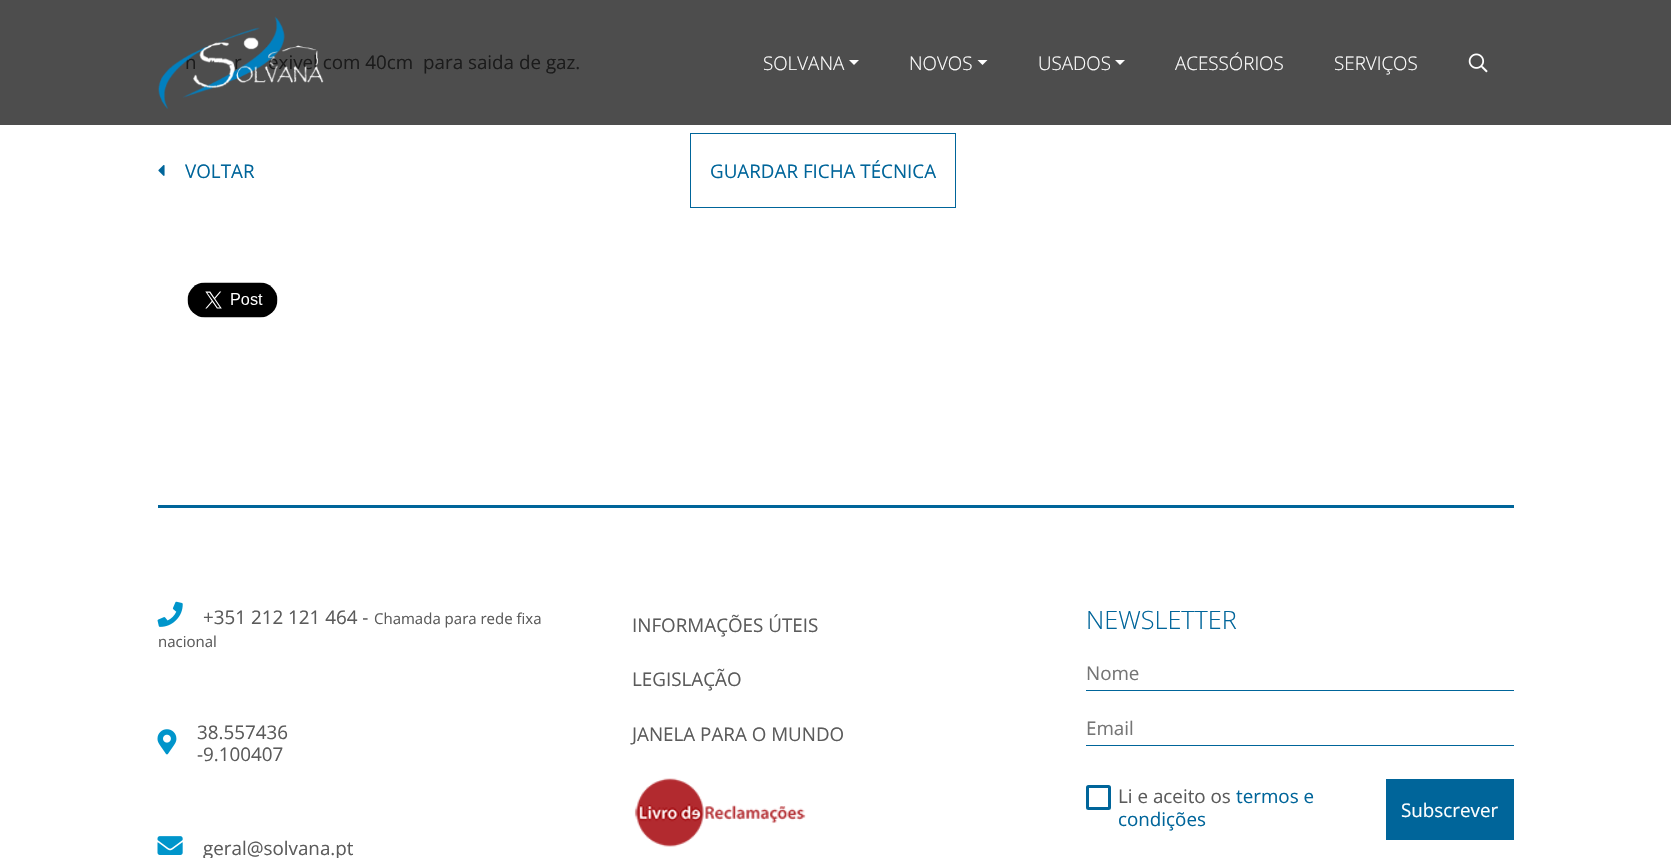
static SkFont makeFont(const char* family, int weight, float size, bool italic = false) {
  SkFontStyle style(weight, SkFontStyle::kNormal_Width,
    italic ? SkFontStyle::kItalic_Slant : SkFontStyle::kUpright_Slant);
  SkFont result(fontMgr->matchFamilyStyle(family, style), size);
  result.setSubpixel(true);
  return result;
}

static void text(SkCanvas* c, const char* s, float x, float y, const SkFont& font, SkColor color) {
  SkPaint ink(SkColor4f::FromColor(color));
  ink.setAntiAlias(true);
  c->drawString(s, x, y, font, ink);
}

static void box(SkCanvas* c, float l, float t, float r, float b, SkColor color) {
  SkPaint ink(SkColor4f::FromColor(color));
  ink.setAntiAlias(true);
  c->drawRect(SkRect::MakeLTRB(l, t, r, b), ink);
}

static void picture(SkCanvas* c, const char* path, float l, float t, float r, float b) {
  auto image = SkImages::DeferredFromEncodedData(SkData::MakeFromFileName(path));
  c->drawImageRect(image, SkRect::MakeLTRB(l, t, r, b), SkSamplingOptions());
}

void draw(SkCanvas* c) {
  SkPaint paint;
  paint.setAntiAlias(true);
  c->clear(0xffffffff);
  box(c, 0, 0, 1671, 125, 0xff4d4d4d);
  SkFont face1 = makeFont("Open Sans", 400, 18.8f);
  text(c, "n", 185, 69, face1, 0xff1b1b1b);
  text(c, "r", 234, 69, face1, 0xff1b1b1b);
  text(c, "exivel com 40cm  para saida de gaz.", 268, 69, face1, 0xff1b1b1b);
  picture(c, "img_01.png", 158, 165, 165, 176);
  text(c, "VOLTAR", 185, 178, face1, 0xff00659a);
  paint.setStyle(SkPaint::kStroke_Style);
  paint.setStrokeWidth(1);
  paint.setColor(0xff00659a);
  c->drawRect(SkRect::MakeLTRB(690.5f, 133.5f, 955.5f, 207.5f), paint);
  text(c, "GUARDAR FICHA TÉCNICA", 710, 178, face1, 0xff00659a);
  picture(c, "img_02.png", 187, 282, 278, 318);
  picture(c, "img_03.png", 158, 16, 324, 109);
  SkFont face2 = makeFont("Open Sans", 300, 18.8f);
  text(c, "SOLVANA", 763, 70, face2, 0xffffffff);
  paint.setStyle(SkPaint::kFill_Style);
  paint.setColor(0xffffffff);
  c->drawPath(SkPathBuilder().moveTo(849, 60).lineTo(859, 60).lineTo(854, 65).close().detach(), paint);
  text(c, "NOVOS", 909, 70, face2, 0xffffffff);
  c->drawPath(SkPathBuilder().moveTo(977.5f, 60).lineTo(987.5f, 60).lineTo(982.5f, 65).close().detach(), paint);
  text(c, "USADOS", 1038, 70, face2, 0xffffffff);
  c->drawPath(SkPathBuilder().moveTo(1115, 60).lineTo(1125, 60).lineTo(1120, 65).close().detach(), paint);
  text(c, "ACESSÓRIOS", 1175, 70, face2, 0xffffffff);
  text(c, "SERVIÇOS", 1334, 70, face2, 0xffffffff);
  picture(c, "img_04.png", 1468, 53, 1488, 73);
  box(c, 158, 505, 1514, 508, 0xff00659a);
  picture(c, "img_05.png", 157, 601, 183, 627);
  text(c, "+351 212 121 464 -", 203, 624, face1, 0xff5b5b5b);
  SkFont face3 = makeFont("Open Sans", 400, 15);
  text(c, "Chamada para rede fixa", 374, 624, face3, 0xff5b5b5b);
  text(c, "nacional", 158, 647, face3, 0xff5b5b5b);
  picture(c, "img_06.png", 157, 729, 177, 755);
  text(c, "38.557436", 197, 739, face1, 0xff5b5b5b);
  text(c, "-9.100407", 197, 761, face1, 0xff5b5b5b);
  picture(c, "img_07.png", 157, 836, 183, 855);
  text(c, "geral@solvana.pt", 203, 855, face1, 0xff5b5b5b);
  text(c, "INFORMAÇÕES ÚTEIS", 632, 632, face1, 0xff5b5b5b);
  text(c, "LEGISLAÇÃO", 632, 686, face1, 0xff5b5b5b);
  text(c, "JANELA PARA O MUNDO", 632, 741, face1, 0xff5b5b5b);
  picture(c, "img_08.png", 634, 778, 806, 847);
  SkFont face4 = makeFont("Open Sans", 300, 25.25f);
  text(c, "NEWSLETTER", 1086, 629, face4, 0xff00659a);
  box(c, 1086, 690, 1514, 691, 0xff00659a);
  text(c, "Nome", 1086, 680, face1, 0xff757575);
  box(c, 1086, 745, 1514, 746, 0xff00659a);
  text(c, "Email", 1086, 735, face1, 0xff757575);
  paint.setStyle(SkPaint::kStroke_Style);
  paint.setStrokeWidth(3);
  paint.setColor(0xff00659a);
  c->drawRoundRect(SkRect::MakeLTRB(1087.5f, 786.5f, 1109.5f, 808.5f), 1, 1, paint);
  text(c, "Li e aceito os", 1118, 803, face1, 0xff5b5b5b);
  text(c, "termos e", 1236, 803, face1, 0xff00659a);
  text(c, "condições", 1118, 826, face1, 0xff00659a);
  box(c, 1386, 779, 1514, 840, 0xff00659a);
  text(c, "Subscrever", 1401, 817, face1, 0xffffffff);
}
